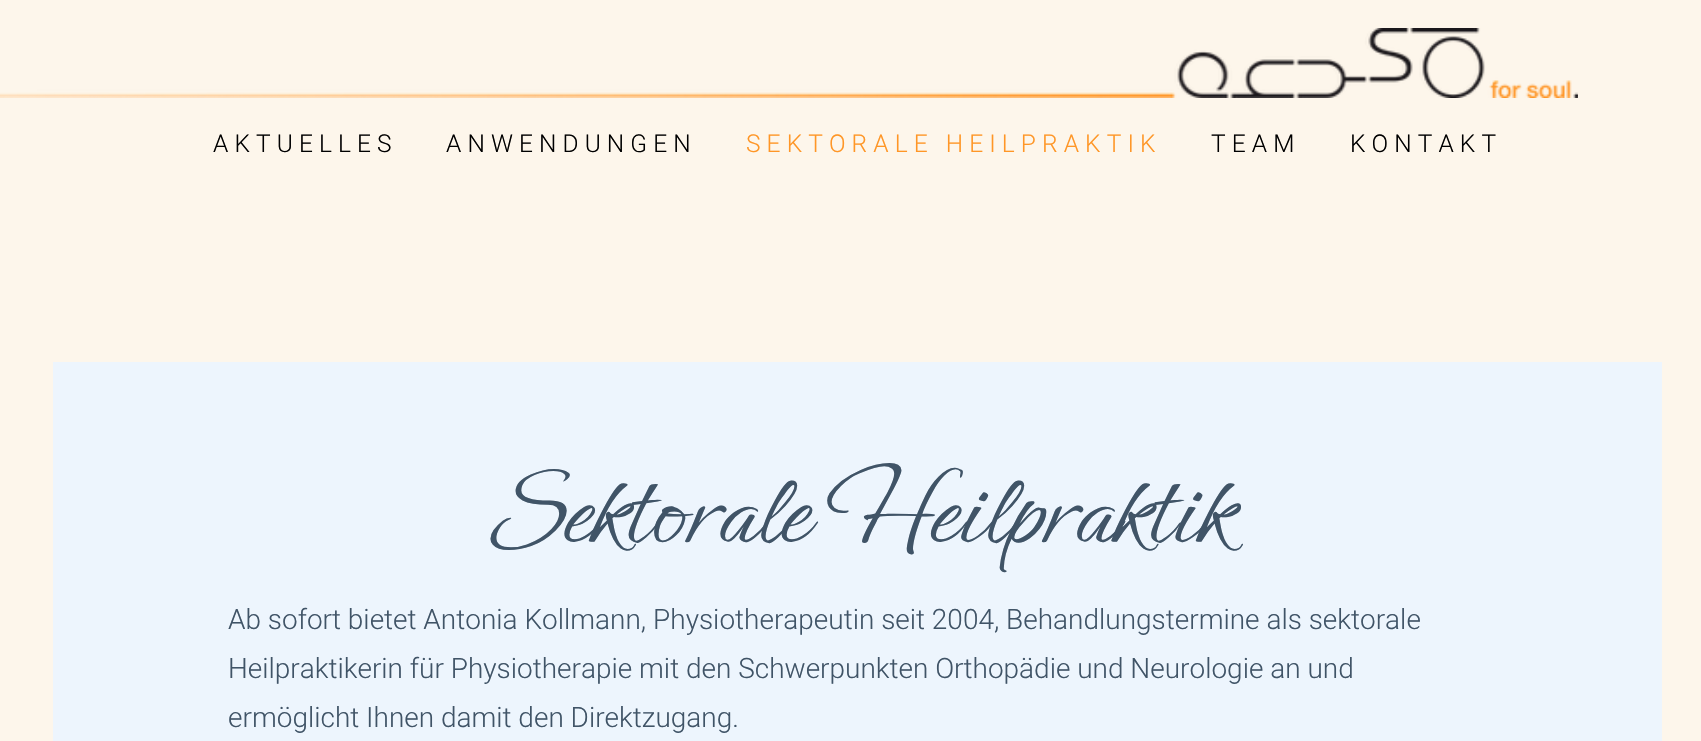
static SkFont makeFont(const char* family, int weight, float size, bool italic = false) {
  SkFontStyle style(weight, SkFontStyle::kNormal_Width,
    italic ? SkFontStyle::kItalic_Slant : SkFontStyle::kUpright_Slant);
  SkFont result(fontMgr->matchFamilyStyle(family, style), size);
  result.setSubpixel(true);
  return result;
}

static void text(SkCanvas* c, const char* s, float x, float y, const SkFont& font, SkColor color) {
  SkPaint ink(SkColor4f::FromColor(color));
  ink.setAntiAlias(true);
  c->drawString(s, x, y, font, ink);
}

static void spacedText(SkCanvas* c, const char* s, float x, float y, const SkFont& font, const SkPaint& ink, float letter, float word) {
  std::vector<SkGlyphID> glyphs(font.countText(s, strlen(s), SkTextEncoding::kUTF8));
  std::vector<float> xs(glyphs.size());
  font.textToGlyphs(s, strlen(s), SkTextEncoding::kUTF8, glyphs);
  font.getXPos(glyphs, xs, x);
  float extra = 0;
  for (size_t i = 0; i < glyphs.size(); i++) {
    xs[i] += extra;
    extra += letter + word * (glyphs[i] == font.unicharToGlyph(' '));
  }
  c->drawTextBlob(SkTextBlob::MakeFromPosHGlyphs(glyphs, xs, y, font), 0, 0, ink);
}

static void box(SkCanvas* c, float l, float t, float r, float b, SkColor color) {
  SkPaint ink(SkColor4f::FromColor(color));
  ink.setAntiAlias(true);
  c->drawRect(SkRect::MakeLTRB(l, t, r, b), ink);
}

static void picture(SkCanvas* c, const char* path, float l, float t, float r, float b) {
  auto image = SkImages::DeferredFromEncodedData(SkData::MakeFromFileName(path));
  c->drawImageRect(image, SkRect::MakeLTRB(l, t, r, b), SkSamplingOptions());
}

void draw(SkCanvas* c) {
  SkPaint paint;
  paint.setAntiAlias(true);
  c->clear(0xfffdf6eb);
  picture(c, "img_01.png", 0, 28, 1578, 98);
  SkFont face1 = makeFont("Roboto", 300, 24.5f);
  paint.setColor(0xff000000);
  spacedText(c, "AKTUELLES", 213, 152, face1, paint, 6.1f, 0);
  spacedText(c, "ANWENDUNGEN", 446, 152, face1, paint, 6.1f, 0);
  paint.setColor(0xffff9626);
  spacedText(c, "SEKTORALE HEILPRAKTIK", 746, 152, face1, paint, 6.1f, 0);
  paint.setColor(0xff000000);
  spacedText(c, "TEAM", 1211, 152, face1, paint, 6.1f, 0);
  spacedText(c, "KONTAKT", 1350, 152, face1, paint, 6.1f, 0);
  box(c, 53, 362, 1662, 741, 0xffedf5fd);
  SkFont face2 = makeFont("Ephesis", 400, 113.75f);
  text(c, "Sektorale Heilpraktik", 485, 541, face2, 0xff405467);
  SkFont face3 = makeFont("Roboto", 300, 28);
  text(c, "Ab sofort bietet Antonia Kollmann, Physiotherapeutin seit 2004, Behandlungstermine als sektorale", 228, 629, face3, 0xff405467);
  text(c, "Heilpraktikerin für Physiotherapie mit den Schwerpunkten Orthopädie und Neurologie an und", 228, 678, face3, 0xff405467);
  text(c, "ermöglicht Ihnen damit den Direktzugang.", 228, 727, face3, 0xff405467);
}
